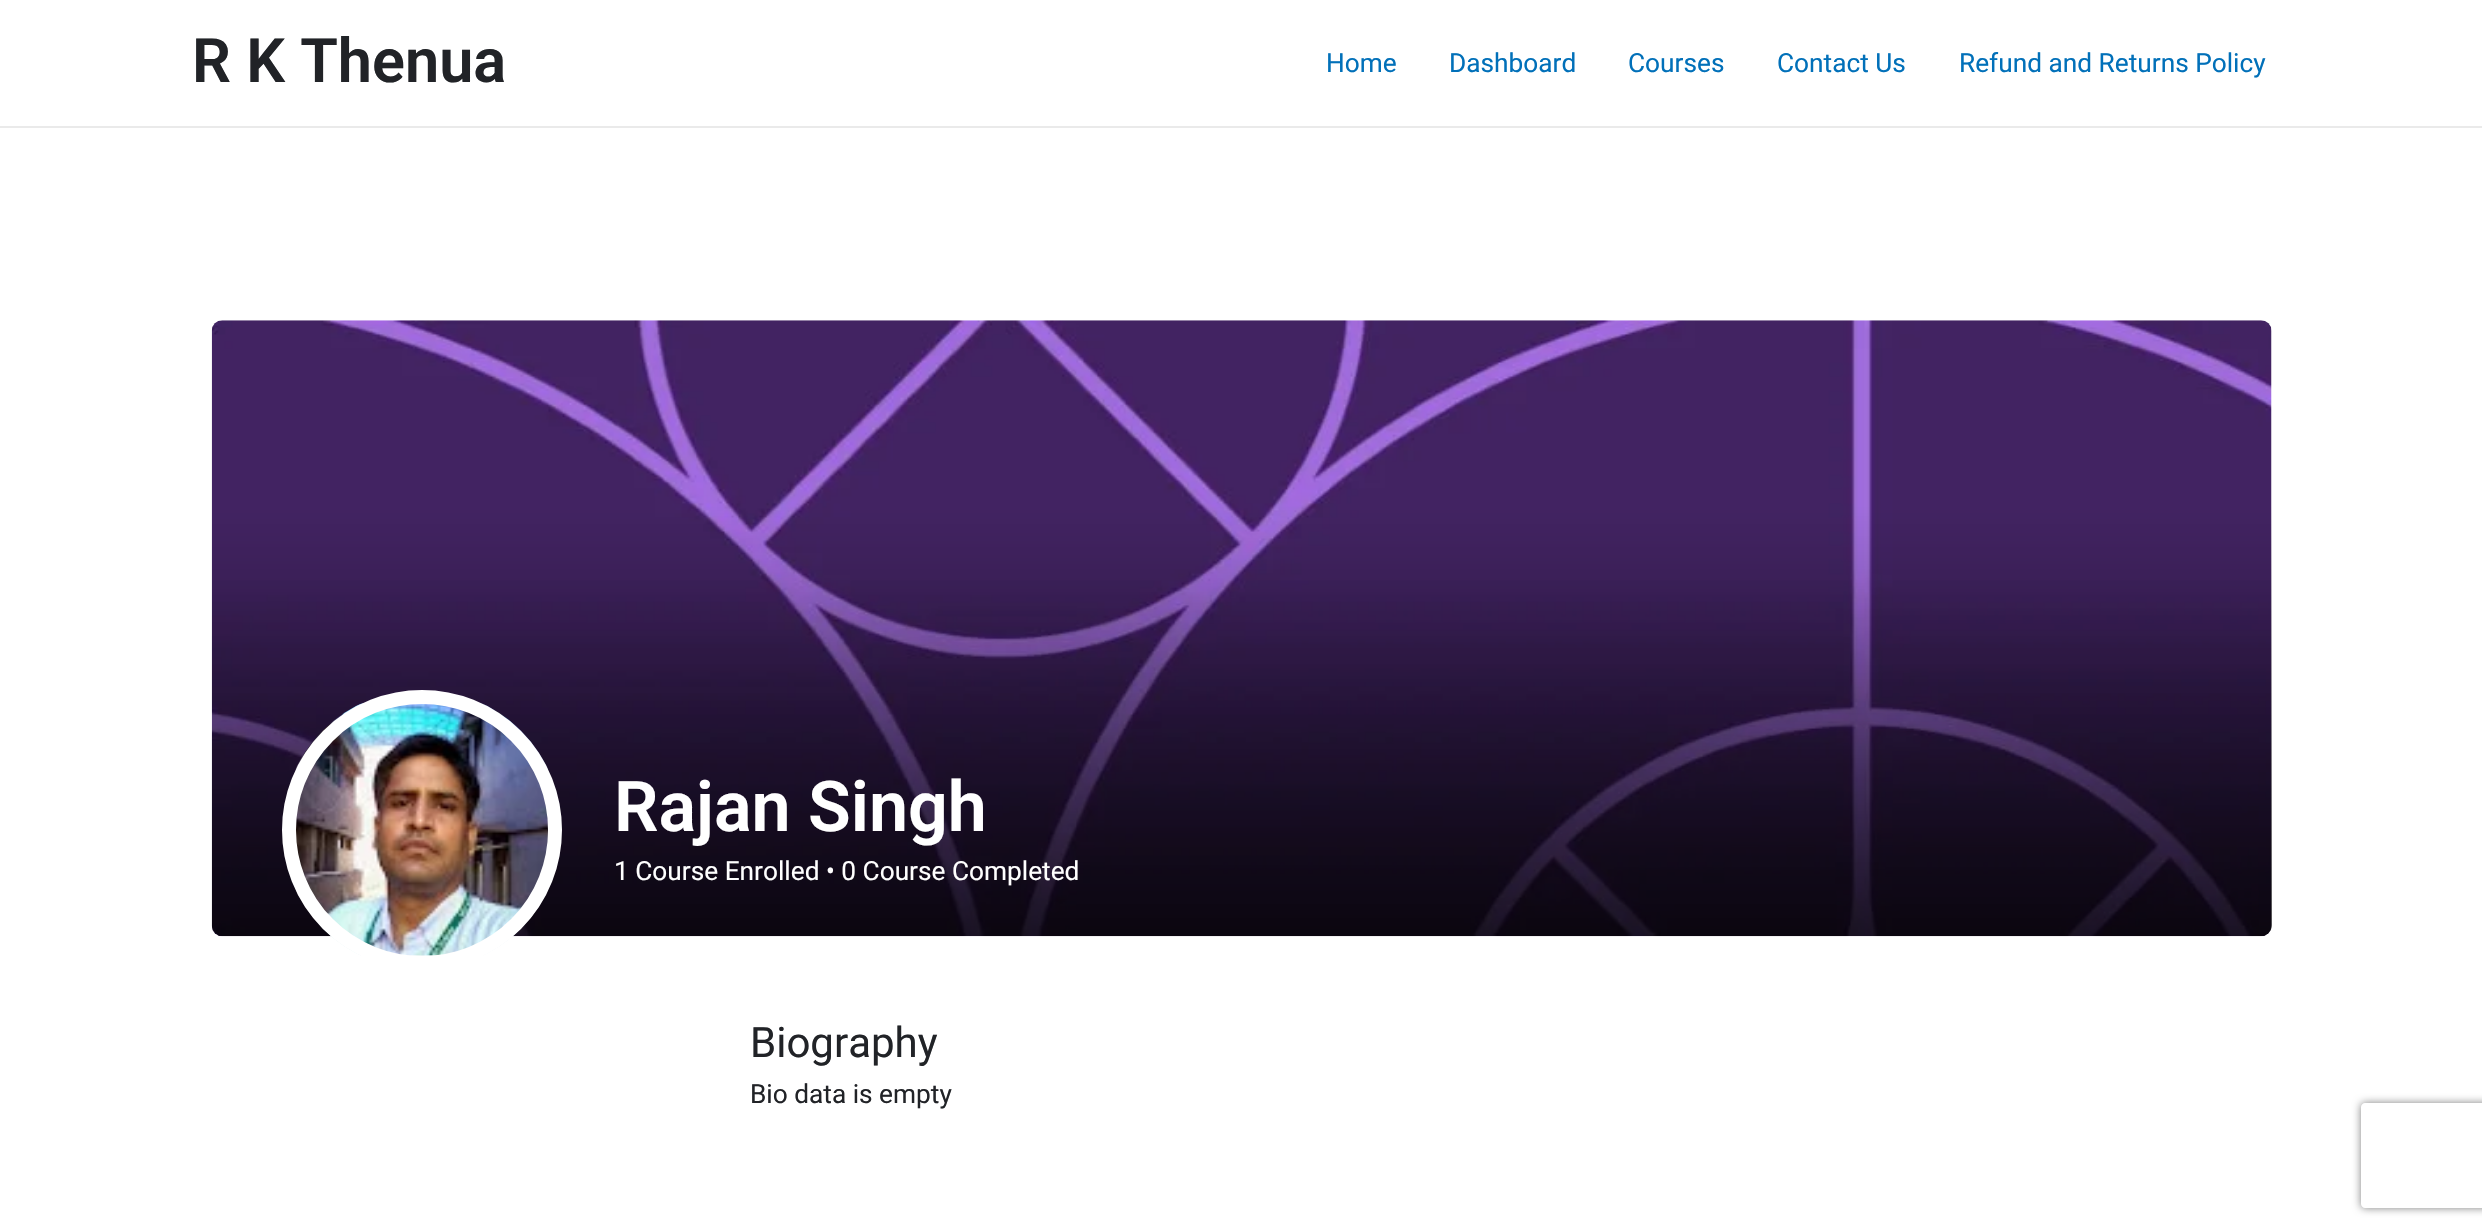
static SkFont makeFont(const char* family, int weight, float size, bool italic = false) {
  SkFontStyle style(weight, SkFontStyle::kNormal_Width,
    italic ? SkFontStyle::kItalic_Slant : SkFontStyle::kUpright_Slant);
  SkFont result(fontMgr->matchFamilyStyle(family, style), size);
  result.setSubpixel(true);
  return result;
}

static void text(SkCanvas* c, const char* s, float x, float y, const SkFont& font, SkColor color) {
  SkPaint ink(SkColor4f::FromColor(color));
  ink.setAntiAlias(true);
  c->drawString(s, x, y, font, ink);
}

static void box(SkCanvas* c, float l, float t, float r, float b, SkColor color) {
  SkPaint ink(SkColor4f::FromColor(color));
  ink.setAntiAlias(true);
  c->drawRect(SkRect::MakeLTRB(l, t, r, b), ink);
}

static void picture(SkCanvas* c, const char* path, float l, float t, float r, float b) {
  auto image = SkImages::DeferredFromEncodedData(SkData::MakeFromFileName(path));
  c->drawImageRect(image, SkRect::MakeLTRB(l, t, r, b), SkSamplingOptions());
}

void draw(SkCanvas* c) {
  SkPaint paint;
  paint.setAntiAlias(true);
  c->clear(0xffffffff);
  box(c, 0, 126, 2482, 128, 0xffeaeaea);
  SkFont face1 = makeFont("Roboto", 600, 61.25f);
  text(c, "R K Thenua", 192, 82, face1, 0xff212327);
  SkFont face2 = makeFont("Roboto", 400, 26.25f);
  text(c, "Home", 1326, 72, face2, 0xff0170b9);
  text(c, "Dashboard", 1449, 72, face2, 0xff0170b9);
  text(c, "Courses", 1628, 72, face2, 0xff0170b9);
  text(c, "Contact Us", 1777, 72, face2, 0xff0170b9);
  text(c, "Refund and Returns Policy", 1959, 72, face2, 0xff0170b9);
  picture(c, "img_01.png", 211, 320, 2272, 937);
  {
    const SkColor colors[] = {0x00000000, 0x99000000};
    const float stops[] = {0, 1};
    const SkPoint ends[] = {{1242, 506}, {1242, 936}};
    paint.setShader(SkGradientShader::MakeLinear(ends, colors, stops, 2, SkTileMode::kClamp));
    paint.setAlpha(255);
  }
  c->drawPath(SkPathBuilder().moveTo(212, 506).lineTo(2272, 506).lineTo(2272, 925).cubicTo(2272, 931, 2267, 936, 2261, 936).lineTo(223, 936).cubicTo(217, 936, 212, 931, 212, 925).close().detach(), paint);
  picture(c, "img_02.png", 295, 703, 548, 956);
  paint.setStyle(SkPaint::kStroke_Style);
  paint.setStrokeWidth(14);
  paint.setShader(nullptr);
  paint.setColor(0xffffffff);
  c->drawCircle(422, 830, 133, paint);
  SkFont face3 = makeFont("Roboto", 600, 70);
  text(c, "Rajan Singh", 614, 831, face3, 0xffffffff);
  text(c, "1 Course Enrolled • 0 Course Completed", 614, 880, face2, 0xffffffff);
  SkFont face4 = makeFont("Roboto", 400, 42);
  text(c, "Biography", 750, 1057, face4, 0xff212327);
  text(c, "Bio data is empty", 750, 1103, face2, 0xff212327);
  c->save();
  c->clipPath(SkPathBuilder(SkPathFillType::kEvenOdd).moveTo(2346, 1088).lineTo(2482, 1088).lineTo(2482, 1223).lineTo(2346, 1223).close().moveTo(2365, 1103).lineTo(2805, 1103).cubicTo(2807, 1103, 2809, 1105, 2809, 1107).lineTo(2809, 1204).cubicTo(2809, 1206, 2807, 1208, 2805, 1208).lineTo(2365, 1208).cubicTo(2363, 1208, 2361, 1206, 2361, 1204).lineTo(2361, 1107).cubicTo(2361, 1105, 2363, 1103, 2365, 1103).close().detach(), true);
  paint.setStyle(SkPaint::kFill_Style);
  paint.setColor(0xff808080);
  paint.setMaskFilter(SkMaskFilter::MakeBlur(kNormal_SkBlurStyle, 4.5f));
  c->drawRoundRect(SkRect::MakeLTRB(2361, 1103, 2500, 1208), 4, 4, paint);
  paint.setMaskFilter(nullptr);
  c->restore();
}
